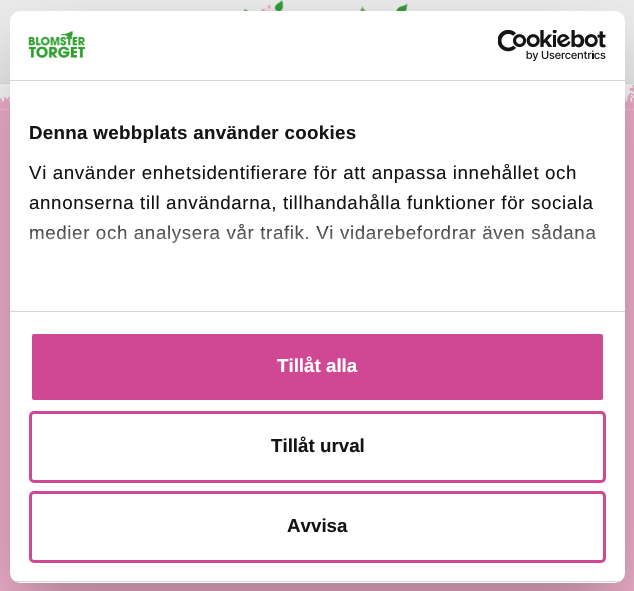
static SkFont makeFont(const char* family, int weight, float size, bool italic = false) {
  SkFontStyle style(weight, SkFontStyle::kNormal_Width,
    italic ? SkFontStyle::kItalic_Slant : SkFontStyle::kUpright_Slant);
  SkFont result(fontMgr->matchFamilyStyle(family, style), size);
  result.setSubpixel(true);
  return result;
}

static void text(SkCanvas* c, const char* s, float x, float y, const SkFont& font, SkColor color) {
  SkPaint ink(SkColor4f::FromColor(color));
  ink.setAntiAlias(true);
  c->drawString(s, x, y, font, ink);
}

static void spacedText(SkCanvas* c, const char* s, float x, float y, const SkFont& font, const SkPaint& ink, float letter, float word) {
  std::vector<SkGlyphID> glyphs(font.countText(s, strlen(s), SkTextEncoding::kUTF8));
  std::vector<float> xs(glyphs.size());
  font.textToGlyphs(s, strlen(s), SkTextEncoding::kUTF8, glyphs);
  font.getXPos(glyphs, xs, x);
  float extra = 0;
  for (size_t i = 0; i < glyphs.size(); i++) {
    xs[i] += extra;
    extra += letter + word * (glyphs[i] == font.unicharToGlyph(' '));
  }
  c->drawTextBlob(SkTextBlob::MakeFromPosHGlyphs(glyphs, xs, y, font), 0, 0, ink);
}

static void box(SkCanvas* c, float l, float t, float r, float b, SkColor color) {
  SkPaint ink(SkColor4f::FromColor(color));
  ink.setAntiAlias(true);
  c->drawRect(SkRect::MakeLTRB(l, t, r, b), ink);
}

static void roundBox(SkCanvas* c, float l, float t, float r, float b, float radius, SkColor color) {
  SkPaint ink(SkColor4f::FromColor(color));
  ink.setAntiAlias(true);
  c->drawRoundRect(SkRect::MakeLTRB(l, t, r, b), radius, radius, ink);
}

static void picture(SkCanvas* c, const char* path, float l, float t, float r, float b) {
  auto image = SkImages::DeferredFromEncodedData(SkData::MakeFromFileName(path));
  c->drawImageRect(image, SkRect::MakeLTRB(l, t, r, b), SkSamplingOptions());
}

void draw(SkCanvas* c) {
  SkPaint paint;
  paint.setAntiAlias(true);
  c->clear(0xffffffff);
  box(c, 0, 0, 634, 83, 0xffeeeeee);
  box(c, 0, 83, 634, 84, 0xffe6e6e6);
  picture(c, "img_01.png", 243, 0, 408, 11);
  picture(c, "img_02.png", 0, 84, 634, 110);
  box(c, 0, 110, 634, 591, 0xfff5b3d1);
  paint.setColor(0x4d000000);
  paint.setMaskFilter(SkMaskFilter::MakeBlur(kNormal_SkBlurStyle, 42.5f));
  c->drawRoundRect(SkRect::MakeLTRB(10, 51, 625, 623), 10, 10, paint);
  paint.setMaskFilter(nullptr);
  roundBox(c, 10, 11, 625, 583, 10, 0xffffffff);
  box(c, 10, 80, 625, 81, 0xffd6d6d6);
  picture(c, "img_03.png", 28, 31, 86, 58);
  picture(c, "img_04.png", 498, 30, 606, 61);
  box(c, 10, 311, 625, 312, 0xffd6d6d6);
  SkFont face1 = makeFont("Liberation Sans", 700, 18.75f);
  paint.setColor(0xff141414);
  spacedText(c, "Denna webbplats använder cookies", 29, 139, face1, paint, 0.3f, 0);
  SkFont face2 = makeFont("Liberation Sans", 400, 18.75f);
  spacedText(c, "Vi använder enhetsidentifierare för att anpassa innehållet och", 29, 179, face2, paint, 0.62f, 0);
  spacedText(c, "annonserna till användarna, tillhandahålla funktioner för sociala", 29, 209, face2, paint, 0.62f, 0);
  spacedText(c, "medier och analysera vår trafik. Vi vidarebefordrar även sådana", 29, 239, face2, paint, 0.62f, 0);
  {
    const SkColor colors[] = {0xffffffff, 0xccffffff, 0x00ffffff};
    const float stops[] = {0, 0.5f, 1};
    const SkPoint ends[] = {{309, 311}, {309, 217}};
    paint.setShader(SkGradientShader::MakeLinear(ends, colors, stops, 3, SkTileMode::kClamp));
    paint.setAlpha(255);
  }
  c->drawRect(SkRect::MakeLTRB(30, 224, 596, 243), paint);
  c->save();
  c->clipPath(SkPathBuilder().moveTo(20, 11).lineTo(615, 11).cubicTo(620.5f, 11, 625, 15.5f, 625, 21).lineTo(625, 573).cubicTo(625, 578.5f, 620.5f, 583, 615, 583).lineTo(20, 583).cubicTo(14.5f, 583, 10, 578.5f, 10, 573).lineTo(10, 21).cubicTo(10, 15.5f, 14.5f, 11, 20, 11).close().detach(), true);
  box(c, 10, 581, 625, 582, 0xffd6d6d6);
  c->restore();
  paint.setShader(nullptr);
  paint.setColor(0xffd04793);
  c->drawRoundRect(SkRect::MakeLTRB(30.5f, 332.5f, 604.5f, 401.5f), 3.5f, 3.5f, paint);
  paint.setStyle(SkPaint::kStroke_Style);
  paint.setStrokeWidth(3);
  paint.setColor(0xffffffff);
  c->drawRoundRect(SkRect::MakeLTRB(30.5f, 332.5f, 604.5f, 401.5f), 3.5f, 3.5f, paint);
  text(c, "Tillåt alla", 277, 372, face1, 0xffffffff);
  paint.setColor(0xffd04793);
  c->drawRoundRect(SkRect::MakeLTRB(30.5f, 412.5f, 604.5f, 481.5f), 3.5f, 3.5f, paint);
  text(c, "Tillåt urval", 271, 452, face1, 0xff141414);
  c->drawRoundRect(SkRect::MakeLTRB(30.5f, 492.5f, 604.5f, 561.5f), 3.5f, 3.5f, paint);
  text(c, "Avvisa", 287, 532, face1, 0xff141414);
}
